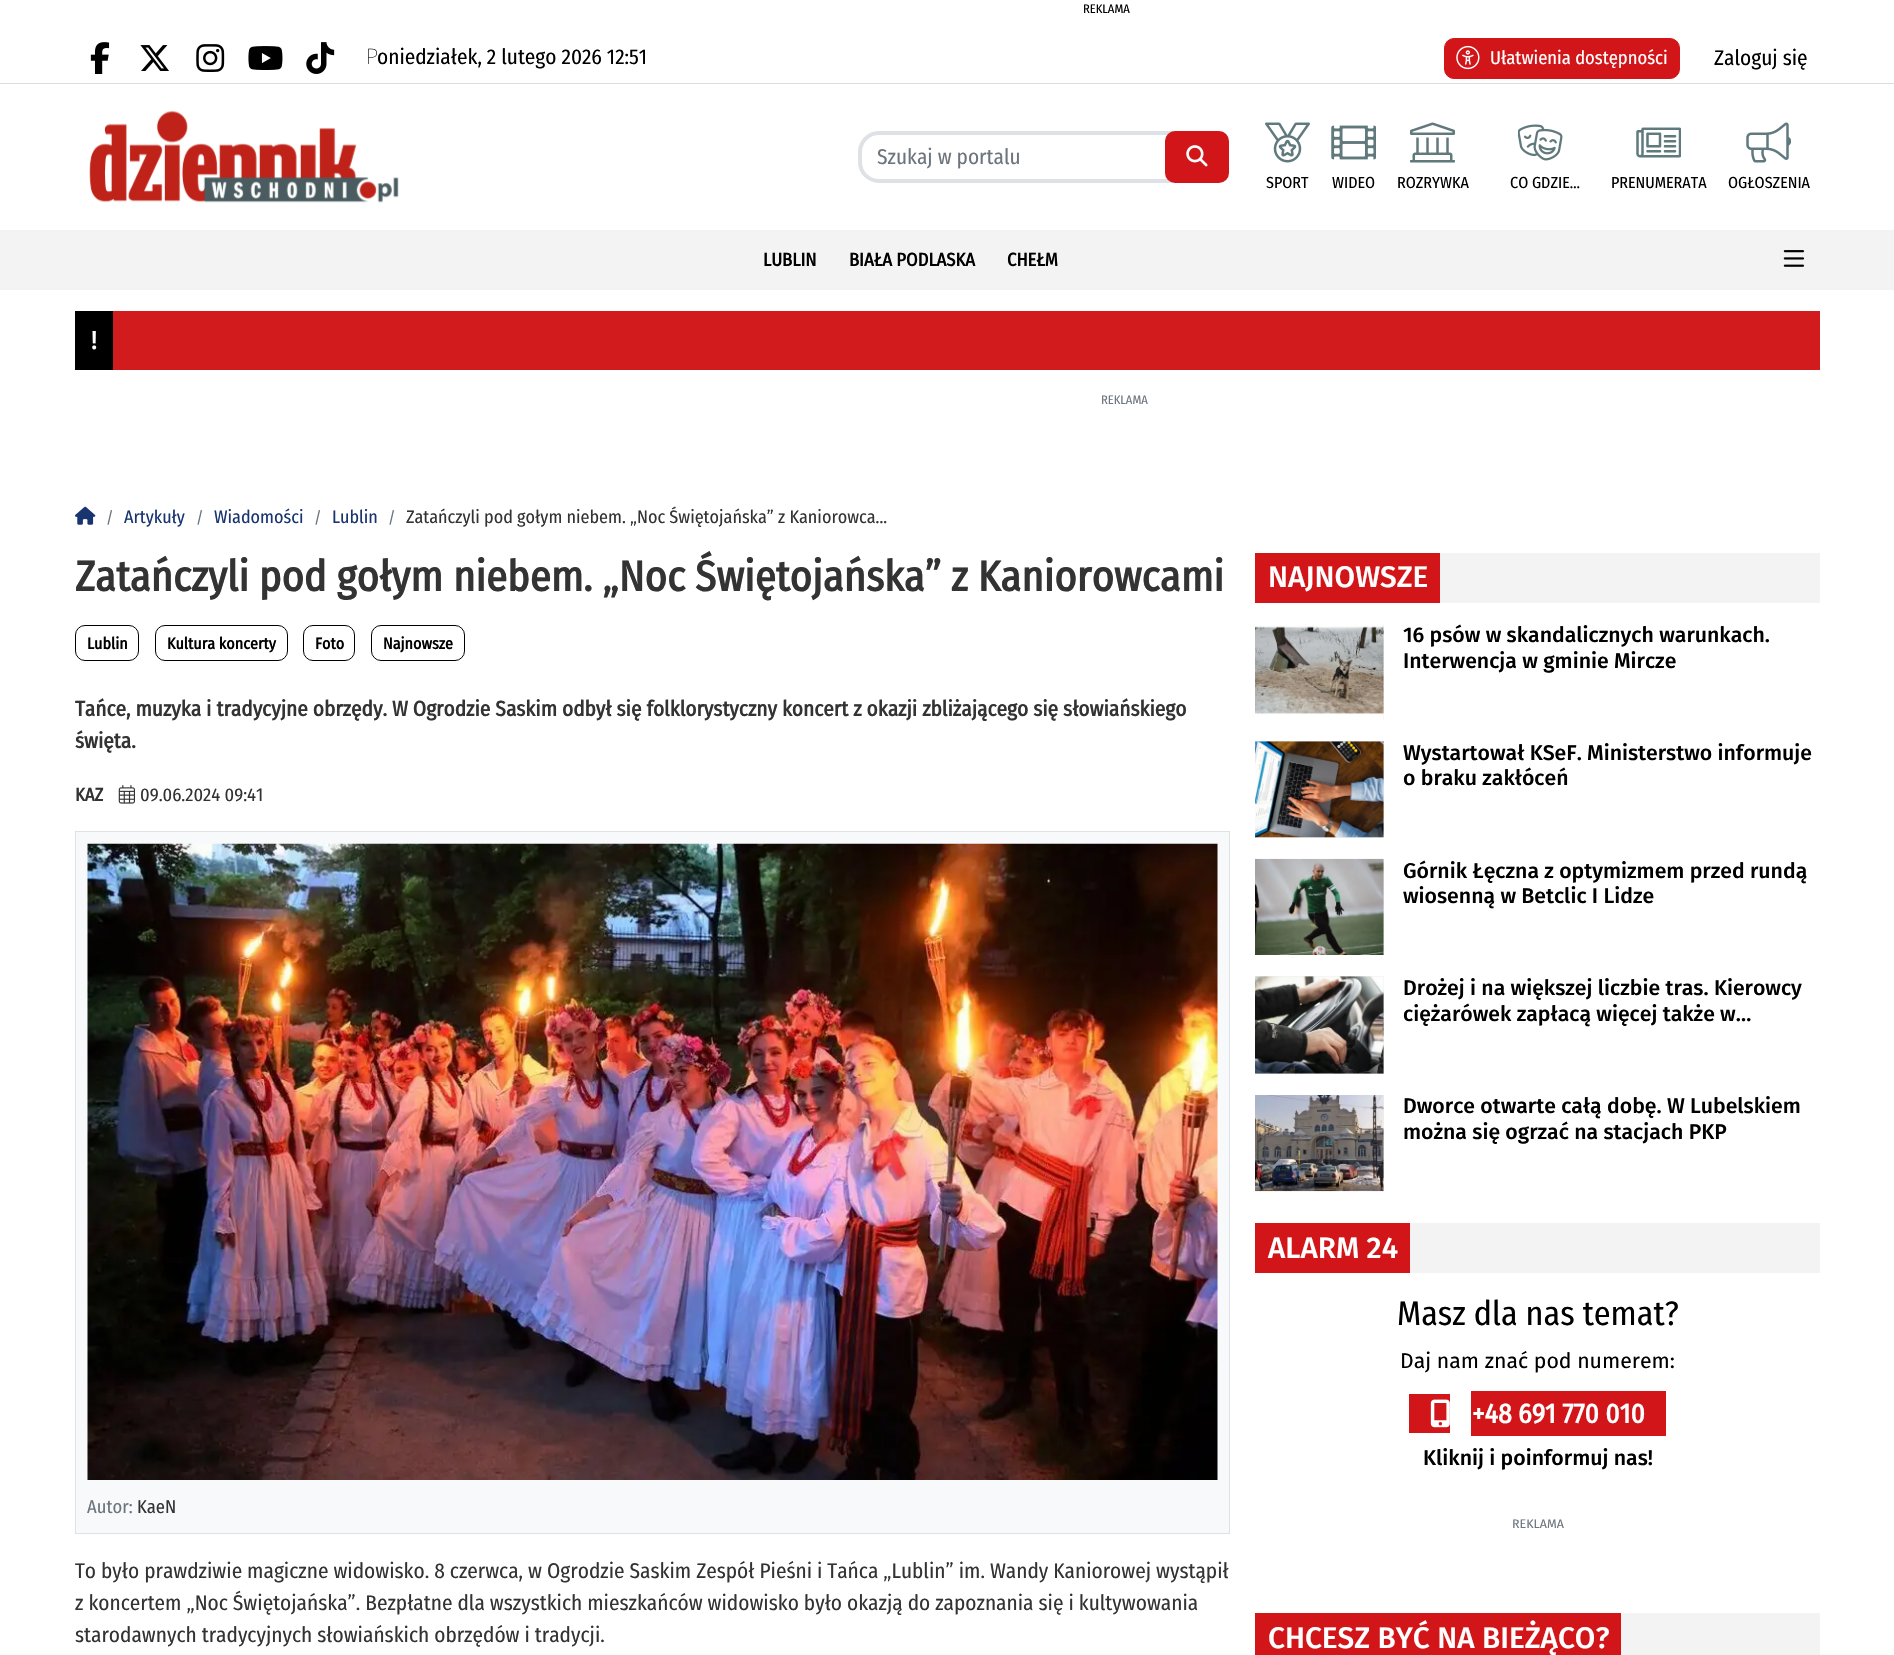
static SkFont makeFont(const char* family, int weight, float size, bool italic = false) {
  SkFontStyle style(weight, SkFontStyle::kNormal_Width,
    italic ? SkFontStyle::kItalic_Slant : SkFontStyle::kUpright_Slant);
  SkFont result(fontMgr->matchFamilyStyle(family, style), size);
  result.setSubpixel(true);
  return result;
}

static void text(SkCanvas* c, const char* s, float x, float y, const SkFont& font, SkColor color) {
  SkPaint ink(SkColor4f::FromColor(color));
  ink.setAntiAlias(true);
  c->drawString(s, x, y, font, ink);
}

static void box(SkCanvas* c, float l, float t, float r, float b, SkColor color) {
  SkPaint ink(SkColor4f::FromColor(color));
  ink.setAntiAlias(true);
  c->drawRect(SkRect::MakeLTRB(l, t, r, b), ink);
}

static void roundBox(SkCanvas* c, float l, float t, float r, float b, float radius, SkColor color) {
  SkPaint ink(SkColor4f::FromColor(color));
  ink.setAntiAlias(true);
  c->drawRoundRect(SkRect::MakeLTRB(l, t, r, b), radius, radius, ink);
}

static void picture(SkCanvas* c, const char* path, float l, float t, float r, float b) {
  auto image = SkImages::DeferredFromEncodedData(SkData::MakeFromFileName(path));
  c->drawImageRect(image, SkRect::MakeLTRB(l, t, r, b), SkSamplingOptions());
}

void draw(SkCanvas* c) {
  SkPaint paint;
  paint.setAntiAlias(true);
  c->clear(0xffffffff);
  SkFont face1 = makeFont("Fira Sans Condensed", 400, 12.5f);
  text(c, "REKLAMA", 1083, 13, face1, 0xff000000);
  box(c, 0, 83, 1894, 84, 0xffdddddd);
  picture(c, "img_01.png", 90, 42, 110, 74);
  picture(c, "img_02.png", 140, 45, 169, 71);
  picture(c, "img_03.png", 196, 44, 225, 72);
  picture(c, "img_04.png", 248, 46, 283, 70);
  picture(c, "img_05.png", 306, 42, 335, 74);
  SkFont face2 = makeFont("Noto Sans", 100, 21.25f);
  text(c, "P", 366, 64, face2, 0xff000000);
  SkFont face3 = makeFont("Fira Sans Condensed", 400, 21.25f);
  text(c, "oniedziałek, 2 lutego 2026 12:51", 377, 64, face3, 0xff000000);
  paint.setColor(0xffd21518);
  c->drawRoundRect(SkRect::MakeLTRB(1444.5f, 38.5f, 1679.5f, 78.5f), 9.5f, 9.5f, paint);
  paint.setStyle(SkPaint::kStroke_Style);
  paint.setStrokeWidth(1);
  c->drawRoundRect(SkRect::MakeLTRB(1444.5f, 38.5f, 1679.5f, 78.5f), 9.5f, 9.5f, paint);
  picture(c, "img_06.png", 1456, 45, 1480, 70);
  SkFont face4 = makeFont("Fira Sans Condensed", 400, 18.5f);
  text(c, "Ułatwienia dostępności", 1490, 64, face4, 0xffffffff);
  text(c, "Zaloguj się", 1714, 65, face3, 0xff000000);
  picture(c, "img_07.png", 89, 110, 399, 203);
  paint.setStrokeWidth(4);
  paint.setColor(0xffdee2e6);
  c->drawRoundRect(SkRect::MakeLTRB(860, 133, 1196, 181), 19, 19, paint);
  text(c, "Szukaj w portalu", 877, 164, face3, 0xff6c757d);
  roundBox(c, 1165, 131, 1229, 183, 10, 0xffd21518);
  picture(c, "img_08.png", 1186, 145, 1208, 167);
  picture(c, "img_09.png", 1265, 122, 1310, 163);
  SkFont face5 = makeFont("Fira Sans Condensed", 400, 16);
  text(c, "SPORT", 1266, 188, face5, 0xff000000);
  picture(c, "img_10.png", 1331, 125, 1376, 160);
  text(c, "WIDEO", 1332, 188, face5, 0xff000000);
  picture(c, "img_11.png", 1410, 122, 1455, 163);
  text(c, "ROZRYWKA", 1397, 188, face5, 0xff000000);
  picture(c, "img_12.png", 1518, 124, 1563, 161);
  text(c, "CO GDZIE…", 1510, 188, face5, 0xff000000);
  picture(c, "img_13.png", 1636, 127, 1681, 158);
  text(c, "PRENUMERATA", 1611, 188, face5, 0xff000000);
  picture(c, "img_14.png", 1746, 122, 1791, 163);
  text(c, "OGŁOSZENIA", 1728, 188, face5, 0xff000000);
  box(c, 0, 230, 1894, 290, 0xfff3f3f3);
  SkFont face6 = makeFont("Fira Sans Condensed", 700, 18.5f);
  text(c, "LUBLIN", 763, 266, face6, 0xff000000);
  text(c, "BIAŁA PODLASKA", 849, 266, face6, 0xff000000);
  text(c, "CHEŁM", 1007, 266, face6, 0xff000000);
  picture(c, "img_15.png", 1783, 250, 1805, 267);
  box(c, 113, 311, 1820, 370, 0xffd21b1c);
  box(c, 75, 311, 113, 370, 0xff000000);
  SkFont face7 = makeFont("Fira Sans Condensed", 700, 25);
  text(c, "!", 91, 349, face7, 0xffffffff);
  text(c, "REKLAMA", 1101, 404, face1, 0xff6c757d);
  picture(c, "img_16.png", 75, 506, 96, 525);
  text(c, "/", 106, 523, face5, 0xff6c757d);
  SkFont face8 = makeFont("Fira Sans Condensed", 400, 18.05f);
  text(c, "Artykuły", 124, 523, face8, 0xff193570);
  text(c, "/", 196, 523, face5, 0xff6c757d);
  text(c, "Wiadomości", 214, 523, face8, 0xff193570);
  text(c, "/", 314, 523, face5, 0xff6c757d);
  text(c, "Lublin", 332, 523, face8, 0xff193570);
  text(c, "/", 388, 523, face5, 0xff6c757d);
  text(c, "Zatańczyli pod gołym niebem. „Noc Świętojańska” z Kaniorowca...", 406, 523, face8, 0xff333333);
  SkFont face9 = makeFont("Fira Sans Condensed", 700, 42.5f);
  text(c, "Zatańczyli pod gołym niebem. „Noc Świętojańska” z Kaniorowcami", 75, 591, face9, 0xff333333);
  paint.setStrokeWidth(1);
  paint.setColor(0xff000000);
  c->drawRoundRect(SkRect::MakeLTRB(75.5f, 625.5f, 138.5f, 660.5f), 9.5f, 9.5f, paint);
  SkFont face10 = makeFont("Fira Sans Condensed", 700, 16);
  text(c, "Lublin", 87, 649, face10, 0xff000000);
  c->drawRoundRect(SkRect::MakeLTRB(155.5f, 625.5f, 287.5f, 660.5f), 9.5f, 9.5f, paint);
  text(c, "Kultura koncerty", 167, 649, face10, 0xff000000);
  c->drawRoundRect(SkRect::MakeLTRB(303.5f, 625.5f, 354.5f, 660.5f), 9.5f, 9.5f, paint);
  text(c, "Foto", 315, 649, face10, 0xff000000);
  c->drawRoundRect(SkRect::MakeLTRB(371.5f, 625.5f, 464.5f, 660.5f), 9.5f, 9.5f, paint);
  text(c, "Najnowsze", 383, 649, face10, 0xff000000);
  SkFont face11 = makeFont("Fira Sans Condensed", 700, 21.25f);
  text(c, "Tańce, muzyka i tradycyjne obrzędy. W Ogrodzie Saskim odbył się folklorystyczny koncert z okazji zbliżającego się słowiańskiego", 75, 716, face11, 0xff333333);
  text(c, "święta.", 75, 748, face11, 0xff333333);
  text(c, "KAZ", 75, 801, face6, 0xff333333);
  picture(c, "img_17.png", 118, 785, 135, 804);
  text(c, "09.06.2024 09:41", 140, 801, face4, 0xff333333);
  paint.setStyle(SkPaint::kFill_Style);
  paint.setColor(0xfff8f9fa);
  c->drawRect(SkRect::MakeLTRB(75.5f, 831.5f, 1229.5f, 1533.5f), paint);
  paint.setStyle(SkPaint::kStroke_Style);
  paint.setColor(0xffdee2e6);
  c->drawRect(SkRect::MakeLTRB(75.5f, 831.5f, 1229.5f, 1533.5f), paint);
  picture(c, "img_18.png", 87, 843, 1218, 1480);
  text(c, "Autor:", 87, 1513, face4, 0xff6c757d);
  text(c, "KaeN", 137, 1513, face4, 0xff333333);
  text(c, "To było prawdziwie magiczne widowisko. 8 czerwca, w Ogrodzie Saskim Zespół Pieśni i Tańca „Lublin” im. Wandy Kaniorowej wystąpił", 75, 1578, face3, 0xff333333);
  text(c, "z koncertem „Noc Świętojańska”. Bezpłatne dla wszystkich mieszkańców widowisko było okazją do zapoznania się i kultywowania", 75, 1610, face3, 0xff333333);
  text(c, "starodawnych tradycyjnych słowiańskich obrzędów i tradycji.", 75, 1642, face3, 0xff333333);
  box(c, 1440, 553, 1820, 603, 0xfff3f3f3);
  box(c, 1255, 553, 1440, 603, 0xffd21518);
  SkFont face12 = makeFont("Fira Sans", 500, 29.75f);
  text(c, "NAJNOWSZE", 1268, 587, face12, 0xffffffff);
  box(c, 1383, 624, 1384, 720, 0xffeeeeee);
  picture(c, "img_19.png", 1255, 624, 1384, 720);
  SkFont face13 = makeFont("Fira Sans", 500, 21.25f);
  text(c, "16 psów w skandalicznych warunkach.", 1403, 642, face13, 0xff000000);
  text(c, "Interwencja w gminie Mircze", 1403, 668, face13, 0xff000000);
  box(c, 1255, 741, 1384, 838, 0xffeeeeee);
  picture(c, "img_20.png", 1255, 741, 1384, 838);
  text(c, "Wystartował KSeF. Ministerstwo informuje", 1403, 760, face13, 0xff000000);
  text(c, "o braku zakłóceń", 1403, 785, face13, 0xff000000);
  box(c, 1383, 859, 1384, 955, 0xffeeeeee);
  picture(c, "img_21.png", 1255, 858, 1384, 955);
  text(c, "Górnik Łęczna z optymizmem przed rundą", 1403, 878, face13, 0xff000000);
  text(c, "wiosenną w Betclic I Lidze", 1403, 903, face13, 0xff000000);
  box(c, 1255, 976, 1384, 1074, 0xffeeeeee);
  picture(c, "img_22.png", 1255, 976, 1384, 1074);
  text(c, "Drożej i na większej liczbie tras. Kierowcy", 1403, 995, face13, 0xff000000);
  text(c, "ciężarówek zapłacą więcej także w…", 1403, 1021, face13, 0xff000000);
  box(c, 1383, 1095, 1384, 1191, 0xffeeeeee);
  picture(c, "img_23.png", 1255, 1095, 1384, 1192);
  text(c, "Dworce otwarte całą dobę. W Lubelskiem", 1403, 1113, face13, 0xff000000);
  text(c, "można się ogrzać na stacjach PKP", 1403, 1139, face13, 0xff000000);
  box(c, 1410, 1223, 1820, 1273, 0xfff3f3f3);
  box(c, 1255, 1223, 1410, 1273, 0xffd21518);
  text(c, "ALARM 24", 1268, 1258, face12, 0xffffffff);
  SkFont face14 = makeFont("Fira Sans Condensed", 400, 34);
  text(c, "Masz dla nas temat?", 1397, 1325, face14, 0xff000000);
  SkFont face15 = makeFont("Fira Sans", 400, 21.25f);
  text(c, "Daj nam znać pod numerem:", 1400, 1368, face15, 0xff000000);
  box(c, 1409, 1394, 1450, 1433, 0xffd21518);
  box(c, 1471, 1391, 1666, 1436, 0xffd21518);
  picture(c, "img_24.png", 1430, 1399, 1450, 1428);
  SkFont face16 = makeFont("Fira Sans Condensed", 700, 27.5f);
  text(c, "+48 691 770 010", 1472, 1423, face16, 0xffffffff);
  text(c, "Kliknij i poinformuj nas!", 1423, 1465, face13, 0xff000000);
  SkFont face17 = makeFont("Fira Sans", 400, 12.5f);
  text(c, "REKLAMA", 1512, 1528, face17, 0xff6c757d);
  box(c, 1621, 1613, 1820, 1655, 0xfff3f3f3);
  box(c, 1255, 1613, 1621, 1655, 0xffd21518);
  text(c, "CHCESZ BYĆ NA BIEŻĄCO?", 1268, 1648, face12, 0xffffffff);
}
